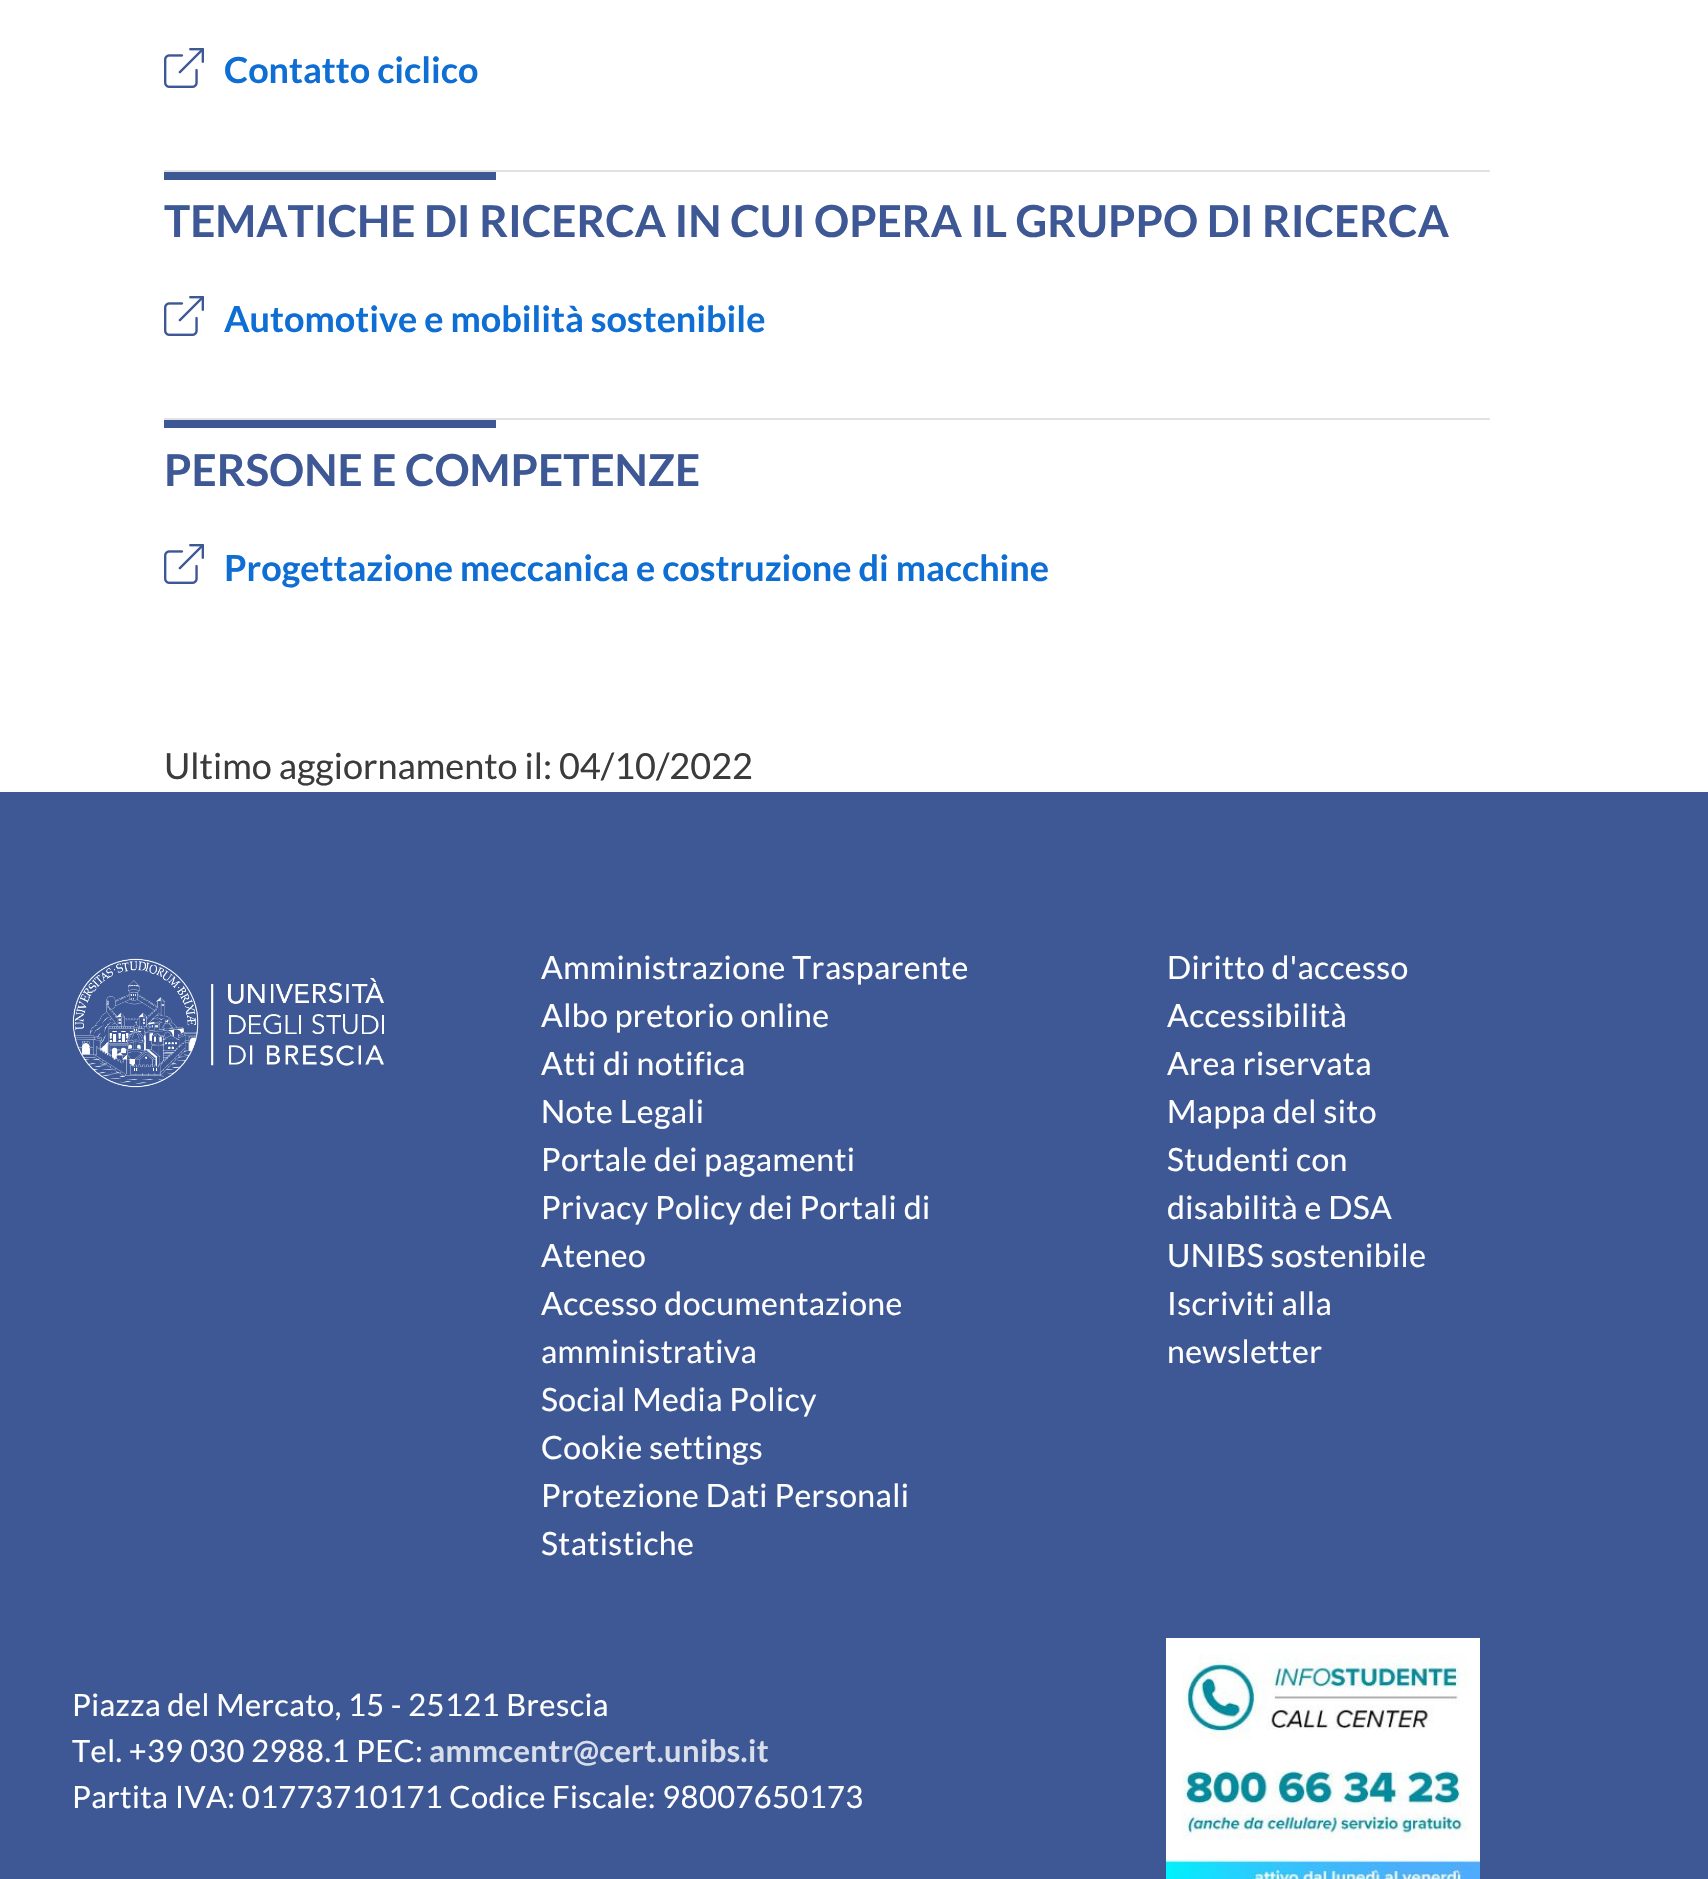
static SkFont makeFont(const char* family, int weight, float size, bool italic = false) {
  SkFontStyle style(weight, SkFontStyle::kNormal_Width,
    italic ? SkFontStyle::kItalic_Slant : SkFontStyle::kUpright_Slant);
  SkFont result(fontMgr->matchFamilyStyle(family, style), size);
  result.setSubpixel(true);
  return result;
}

static void text(SkCanvas* c, const char* s, float x, float y, const SkFont& font, SkColor color) {
  SkPaint ink(SkColor4f::FromColor(color));
  ink.setAntiAlias(true);
  c->drawString(s, x, y, font, ink);
}

static void spacedText(SkCanvas* c, const char* s, float x, float y, const SkFont& font, const SkPaint& ink, float letter, float word) {
  std::vector<SkGlyphID> glyphs(font.countText(s, strlen(s), SkTextEncoding::kUTF8));
  std::vector<float> xs(glyphs.size());
  font.textToGlyphs(s, strlen(s), SkTextEncoding::kUTF8, glyphs);
  font.getXPos(glyphs, xs, x);
  float extra = 0;
  for (size_t i = 0; i < glyphs.size(); i++) {
    xs[i] += extra;
    extra += letter + word * (glyphs[i] == font.unicharToGlyph(' '));
  }
  c->drawTextBlob(SkTextBlob::MakeFromPosHGlyphs(glyphs, xs, y, font), 0, 0, ink);
}

static void box(SkCanvas* c, float l, float t, float r, float b, SkColor color) {
  SkPaint ink(SkColor4f::FromColor(color));
  ink.setAntiAlias(true);
  c->drawRect(SkRect::MakeLTRB(l, t, r, b), ink);
}

static void picture(SkCanvas* c, const char* path, float l, float t, float r, float b) {
  auto image = SkImages::DeferredFromEncodedData(SkData::MakeFromFileName(path));
  c->drawImageRect(image, SkRect::MakeLTRB(l, t, r, b), SkSamplingOptions());
}

void draw(SkCanvas* c) {
  SkPaint paint;
  paint.setAntiAlias(true);
  c->clear(0xffffffff);
  picture(c, "img_01.png", 164, 48, 204, 88);
  SkFont face1 = makeFont("Lato", 700, 36);
  text(c, "Contatto ciclico", 224, 83, face1, 0xff0f6ed4);
  box(c, 164, 170, 1490, 172, 0xffe2e2e2);
  box(c, 164, 172, 496, 180, 0xff3d5895);
  SkFont face2 = makeFont("Lato", 700, 44);
  text(c, "TEMATICHE DI RICERCA IN CUI OPERA IL GRUPPO DI RICERCA", 164, 237, face2, 0xff3d5895);
  picture(c, "img_01.png", 164, 296, 204, 336);
  text(c, "Automotive e mobilità sostenibile", 224, 332, face1, 0xff0f6ed4);
  box(c, 164, 418, 1490, 420, 0xffe2e2e2);
  box(c, 164, 420, 496, 428, 0xff3d5895);
  text(c, "PERSONE E COMPETENZE", 164, 486, face2, 0xff3d5895);
  picture(c, "img_01.png", 164, 544, 204, 584);
  text(c, "Progettazione meccanica e costruzione di macchine", 224, 581, face1, 0xff0f6ed4);
  SkFont face3 = makeFont("Lato", 400, 36);
  text(c, "Ultimo aggiornamento il: 04/10/2022", 164, 779, face3, 0xff3b3b3b);
  box(c, 0, 792, 1708, 1879, 0xff3d5895);
  picture(c, "img_02.png", 72, 958, 384, 1088);
  SkFont face4 = makeFont("Lato", 400, 32);
  paint.setColor(0xffffffff);
  spacedText(c, "Amministrazione Trasparente", 541, 979, face4, paint, 0.4f, 0);
  spacedText(c, "Albo pretorio online", 541, 1027, face4, paint, 0.4f, 0);
  spacedText(c, "Atti di notifica", 541, 1075, face4, paint, 0.4f, 0);
  spacedText(c, "Note Legali", 541, 1123, face4, paint, 0.4f, 0);
  spacedText(c, "Portale dei pagamenti", 541, 1171, face4, paint, 0.4f, 0);
  spacedText(c, "Privacy Policy dei Portali di", 541, 1219, face4, paint, 0.4f, 0);
  spacedText(c, "Ateneo", 541, 1267, face4, paint, 0.4f, 0);
  spacedText(c, "Accesso documentazione", 541, 1315, face4, paint, 0.4f, 0);
  spacedText(c, "amministrativa", 541, 1363, face4, paint, 0.4f, 0);
  spacedText(c, "Social Media Policy", 541, 1411, face4, paint, 0.4f, 0);
  spacedText(c, "Cookie settings", 541, 1459, face4, paint, 0.4f, 0);
  spacedText(c, "Protezione Dati Personali", 541, 1507, face4, paint, 0.4f, 0);
  spacedText(c, "Statistiche", 541, 1555, face4, paint, 0.4f, 0);
  spacedText(c, "Diritto d'accesso", 1167, 979, face4, paint, 0.4f, 0);
  spacedText(c, "Accessibilità", 1167, 1027, face4, paint, 0.4f, 0);
  spacedText(c, "Area riservata", 1167, 1075, face4, paint, 0.4f, 0);
  spacedText(c, "Mappa del sito", 1167, 1123, face4, paint, 0.4f, 0);
  spacedText(c, "Studenti con", 1167, 1171, face4, paint, 0.4f, 0);
  spacedText(c, "disabilità e DSA", 1167, 1219, face4, paint, 0.4f, 0);
  spacedText(c, "UNIBS sostenibile", 1167, 1267, face4, paint, 0.4f, 0);
  spacedText(c, "Iscriviti alla", 1167, 1315, face4, paint, 0.4f, 0);
  spacedText(c, "newsletter", 1167, 1363, face4, paint, 0.4f, 0);
  SkFont face5 = makeFont("Lato", 400, 30.85f);
  spacedText(c, "Piazza del Mercato, 15 - 25121 Brescia", 72, 1716, face5, paint, 0.4f, 0);
  spacedText(c, "Tel. +39 030 2988.1 PEC:", 72, 1762, face5, paint, 0.4f, 0);
  SkFont face6 = makeFont("Lato", 700, 30.85f);
  paint.setColor(0xffd8deea);
  spacedText(c, "ammcentr@cert.unibs.it", 429, 1762, face6, paint, 0.4f, 0);
  paint.setColor(0xffffffff);
  spacedText(c, "Partita IVA: 01773710171 Codice Fiscale: 98007650173", 72, 1808, face5, paint, 0.4f, 0);
  picture(c, "img_03.png", 1166, 1638, 1480, 1879);
}
